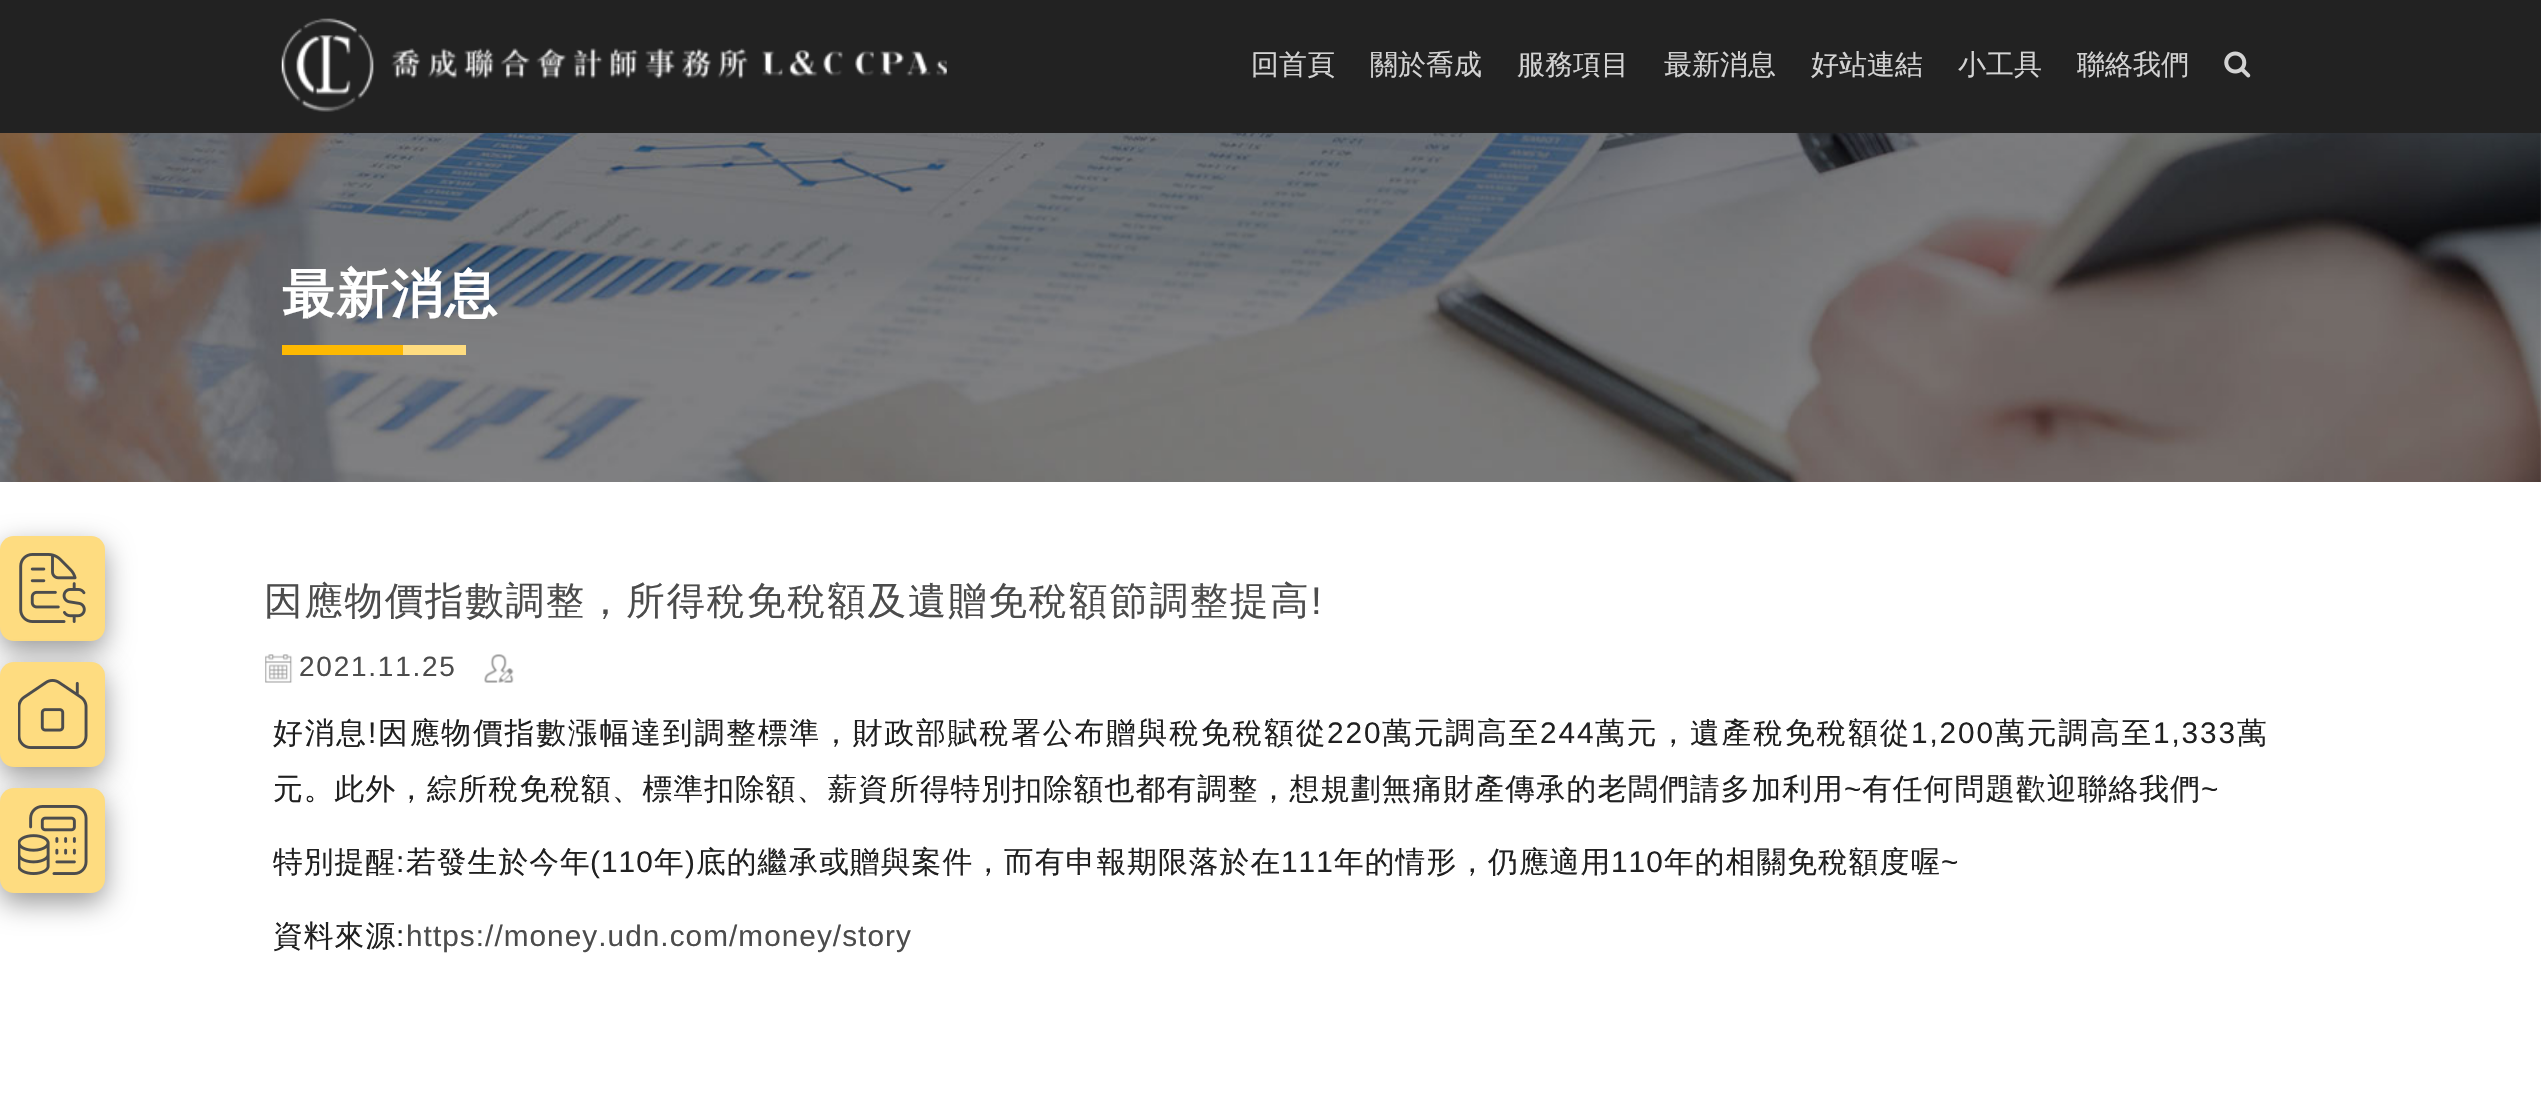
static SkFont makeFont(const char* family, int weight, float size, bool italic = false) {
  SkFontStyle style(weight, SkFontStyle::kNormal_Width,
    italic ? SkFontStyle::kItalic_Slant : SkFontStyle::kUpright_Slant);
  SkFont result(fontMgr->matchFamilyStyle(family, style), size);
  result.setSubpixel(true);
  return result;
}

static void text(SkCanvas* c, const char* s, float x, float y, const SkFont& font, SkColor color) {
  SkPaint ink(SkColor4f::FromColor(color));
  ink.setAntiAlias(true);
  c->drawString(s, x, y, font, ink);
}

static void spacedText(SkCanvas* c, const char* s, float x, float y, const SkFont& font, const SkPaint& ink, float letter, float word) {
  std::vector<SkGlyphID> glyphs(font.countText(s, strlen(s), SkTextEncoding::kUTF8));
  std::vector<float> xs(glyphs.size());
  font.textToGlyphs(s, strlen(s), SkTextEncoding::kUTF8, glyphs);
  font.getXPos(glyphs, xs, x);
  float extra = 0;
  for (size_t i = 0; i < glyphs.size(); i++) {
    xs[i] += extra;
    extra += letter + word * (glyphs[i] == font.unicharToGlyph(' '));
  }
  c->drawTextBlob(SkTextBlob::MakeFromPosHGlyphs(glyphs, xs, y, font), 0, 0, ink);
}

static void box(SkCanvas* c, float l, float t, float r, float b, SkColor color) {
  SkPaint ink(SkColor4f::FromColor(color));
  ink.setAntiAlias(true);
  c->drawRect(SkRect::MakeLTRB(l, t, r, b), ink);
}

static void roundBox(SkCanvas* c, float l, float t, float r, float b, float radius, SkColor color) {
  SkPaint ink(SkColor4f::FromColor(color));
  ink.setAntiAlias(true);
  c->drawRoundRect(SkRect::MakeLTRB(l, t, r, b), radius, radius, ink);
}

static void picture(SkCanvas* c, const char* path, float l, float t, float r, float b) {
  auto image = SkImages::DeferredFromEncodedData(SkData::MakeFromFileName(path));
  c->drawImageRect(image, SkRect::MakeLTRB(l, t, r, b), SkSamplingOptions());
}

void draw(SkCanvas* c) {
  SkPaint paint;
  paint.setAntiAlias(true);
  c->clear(0xffffffff);
  box(c, 0, 0, 2541, 133, 0xff222222);
  picture(c, "img_01.png", 281, 18, 947, 112);
  SkFont face1 = makeFont("WenQuanYi Zen Hei", 500, 28);
  text(c, "回首頁", 1251, 74, face1, 0xffd3d3d3);
  text(c, "關於喬成", 1370, 74, face1, 0xffd3d3d3);
  text(c, "服務項目", 1517, 74, face1, 0xffd3d3d3);
  text(c, "最新消息", 1664, 74, face1, 0xffd3d3d3);
  text(c, "好站連結", 1811, 74, face1, 0xffd3d3d3);
  text(c, "小工具", 1958, 74, face1, 0xffd3d3d3);
  text(c, "聯絡我們", 2077, 74, face1, 0xffd3d3d3);
  picture(c, "img_02.png", 2224, 51, 2251, 78);
  picture(c, "img_03.png", 0, 133, 2541, 482);
  SkFont face2 = makeFont("WenQuanYi Zen Hei", 700, 52.5f);
  paint.setColor(0xffffffff);
  spacedText(c, "最新消息", 282, 312, face2, paint, 1.75f, 0);
  box(c, 403, 345, 466, 355, 0xfffedc80);
  box(c, 282, 345, 403, 355, 0xfffdb902);
  paint.setColor(0x66000000);
  paint.setMaskFilter(SkMaskFilter::MakeBlur(kNormal_SkBlurStyle, 14));
  c->drawRoundRect(SkRect::MakeLTRB(0, 546, 105, 651), 14, 14, paint);
  paint.setMaskFilter(nullptr);
  roundBox(c, 0, 536, 105, 641, 14, 0xfffedc80);
  picture(c, "img_04.png", 19, 553, 86, 623);
  paint.setMaskFilter(SkMaskFilter::MakeBlur(kNormal_SkBlurStyle, 14));
  c->drawRoundRect(SkRect::MakeLTRB(0, 672, 105, 777), 14, 14, paint);
  paint.setMaskFilter(nullptr);
  roundBox(c, 0, 662, 105, 767, 14, 0xfffedc80);
  picture(c, "img_05.png", 18, 679, 88, 749);
  paint.setMaskFilter(SkMaskFilter::MakeBlur(kNormal_SkBlurStyle, 14));
  c->drawRoundRect(SkRect::MakeLTRB(0, 798, 105, 903), 14, 14, paint);
  paint.setMaskFilter(nullptr);
  roundBox(c, 0, 788, 105, 893, 14, 0xfffedc80);
  picture(c, "img_06.png", 18, 805, 88, 875);
  SkFont face3 = makeFont("WenQuanYi Zen Hei", 500, 38.5f);
  paint.setColor(0xff4c4c4c);
  spacedText(c, "因應物價指數調整，所得稅免稅額及遺贈免稅額節調整提高", 264, 614, face3, paint, 1.75f, 0);
  SkFont face4 = makeFont("Liberation Sans", 400, 38.5f);
  spacedText(c, "!", 1311, 614, face4, paint, 1.75f, 0);
  picture(c, "img_07.png", 265, 654, 293, 683);
  SkFont face5 = makeFont("Liberation Sans", 400, 28);
  spacedText(c, "2021.11.25", 299, 676, face5, paint, 1.75f, 0);
  picture(c, "img_08.png", 484, 654, 514, 683);
  SkFont face6 = makeFont("WenQuanYi Zen Hei", 500, 29.75f);
  paint.setColor(0xff202020);
  spacedText(c, "好消息", 273, 743, face6, paint, 1.9f, 0);
  SkFont face7 = makeFont("Liberation Sans", 400, 29.75f);
  spacedText(c, "!", 368, 743, face7, paint, 1.9f, 0);
  spacedText(c, "因應物價指數漲幅達到調整標準，財政部賦稅署公布贈與稅免稅額從", 378, 743, face6, paint, 1.9f, 0);
  spacedText(c, "220", 1327, 743, face7, paint, 1.9f, 0);
  spacedText(c, "萬元調高至", 1382, 743, face6, paint, 1.9f, 0);
  spacedText(c, "244", 1540, 743, face7, paint, 1.9f, 0);
  spacedText(c, "萬元，遺產稅免稅額從", 1595, 743, face6, paint, 1.9f, 0);
  spacedText(c, "1,200", 1911, 743, face7, paint, 1.9f, 0);
  spacedText(c, "萬元調高至", 1995, 743, face6, paint, 1.9f, 0);
  spacedText(c, "1,333", 2153, 743, face7, paint, 1.9f, 0);
  spacedText(c, "萬", 2237, 743, face6, paint, 1.9f, 0);
  spacedText(c, "元。此外，綜所稅免稅額、標準扣除額、薪資所得特別扣除額也都有調整，想規劃無痛財產傳承的老闆們請多加利用", 273, 799, face6, paint, 1.05f, 0);
  spacedText(c, "~", 1844, 799, face7, paint, 1.05f, 0);
  spacedText(c, "有任何問題歡迎聯絡我們", 1862, 799, face6, paint, 1.05f, 0);
  spacedText(c, "~", 2201, 799, face7, paint, 1.05f, 0);
  spacedText(c, "特別提醒", 273, 872, face6, paint, 1.05f, 0);
  spacedText(c, ":", 396, 872, face7, paint, 1.05f, 0);
  spacedText(c, "若發生於今年", 406, 872, face6, paint, 1.05f, 0);
  spacedText(c, "(110", 590, 872, face7, paint, 1.05f, 0);
  spacedText(c, "年", 654, 872, face6, paint, 1.05f, 0);
  spacedText(c, ")", 685, 872, face7, paint, 1.05f, 0);
  spacedText(c, "底的繼承或贈與案件，而有申報期限落於在", 696, 872, face6, paint, 1.05f, 0);
  spacedText(c, "111", 1281, 872, face7, paint, 1.05f, 0);
  spacedText(c, "年的情形，仍應適用", 1334, 872, face6, paint, 1.05f, 0);
  spacedText(c, "110", 1611, 872, face7, paint, 1.05f, 0);
  spacedText(c, "年的相關免稅額度喔", 1664, 872, face6, paint, 1.05f, 0);
  spacedText(c, "~", 1941, 872, face7, paint, 1.05f, 0);
  spacedText(c, "資料來源", 273, 946, face6, paint, 1.05f, 0);
  spacedText(c, ":", 396, 946, face7, paint, 1.05f, 0);
  paint.setColor(0xff4c4c4c);
  spacedText(c, "https://money.udn.com/money/story", 406, 946, face7, paint, 1.05f, 0);
}
